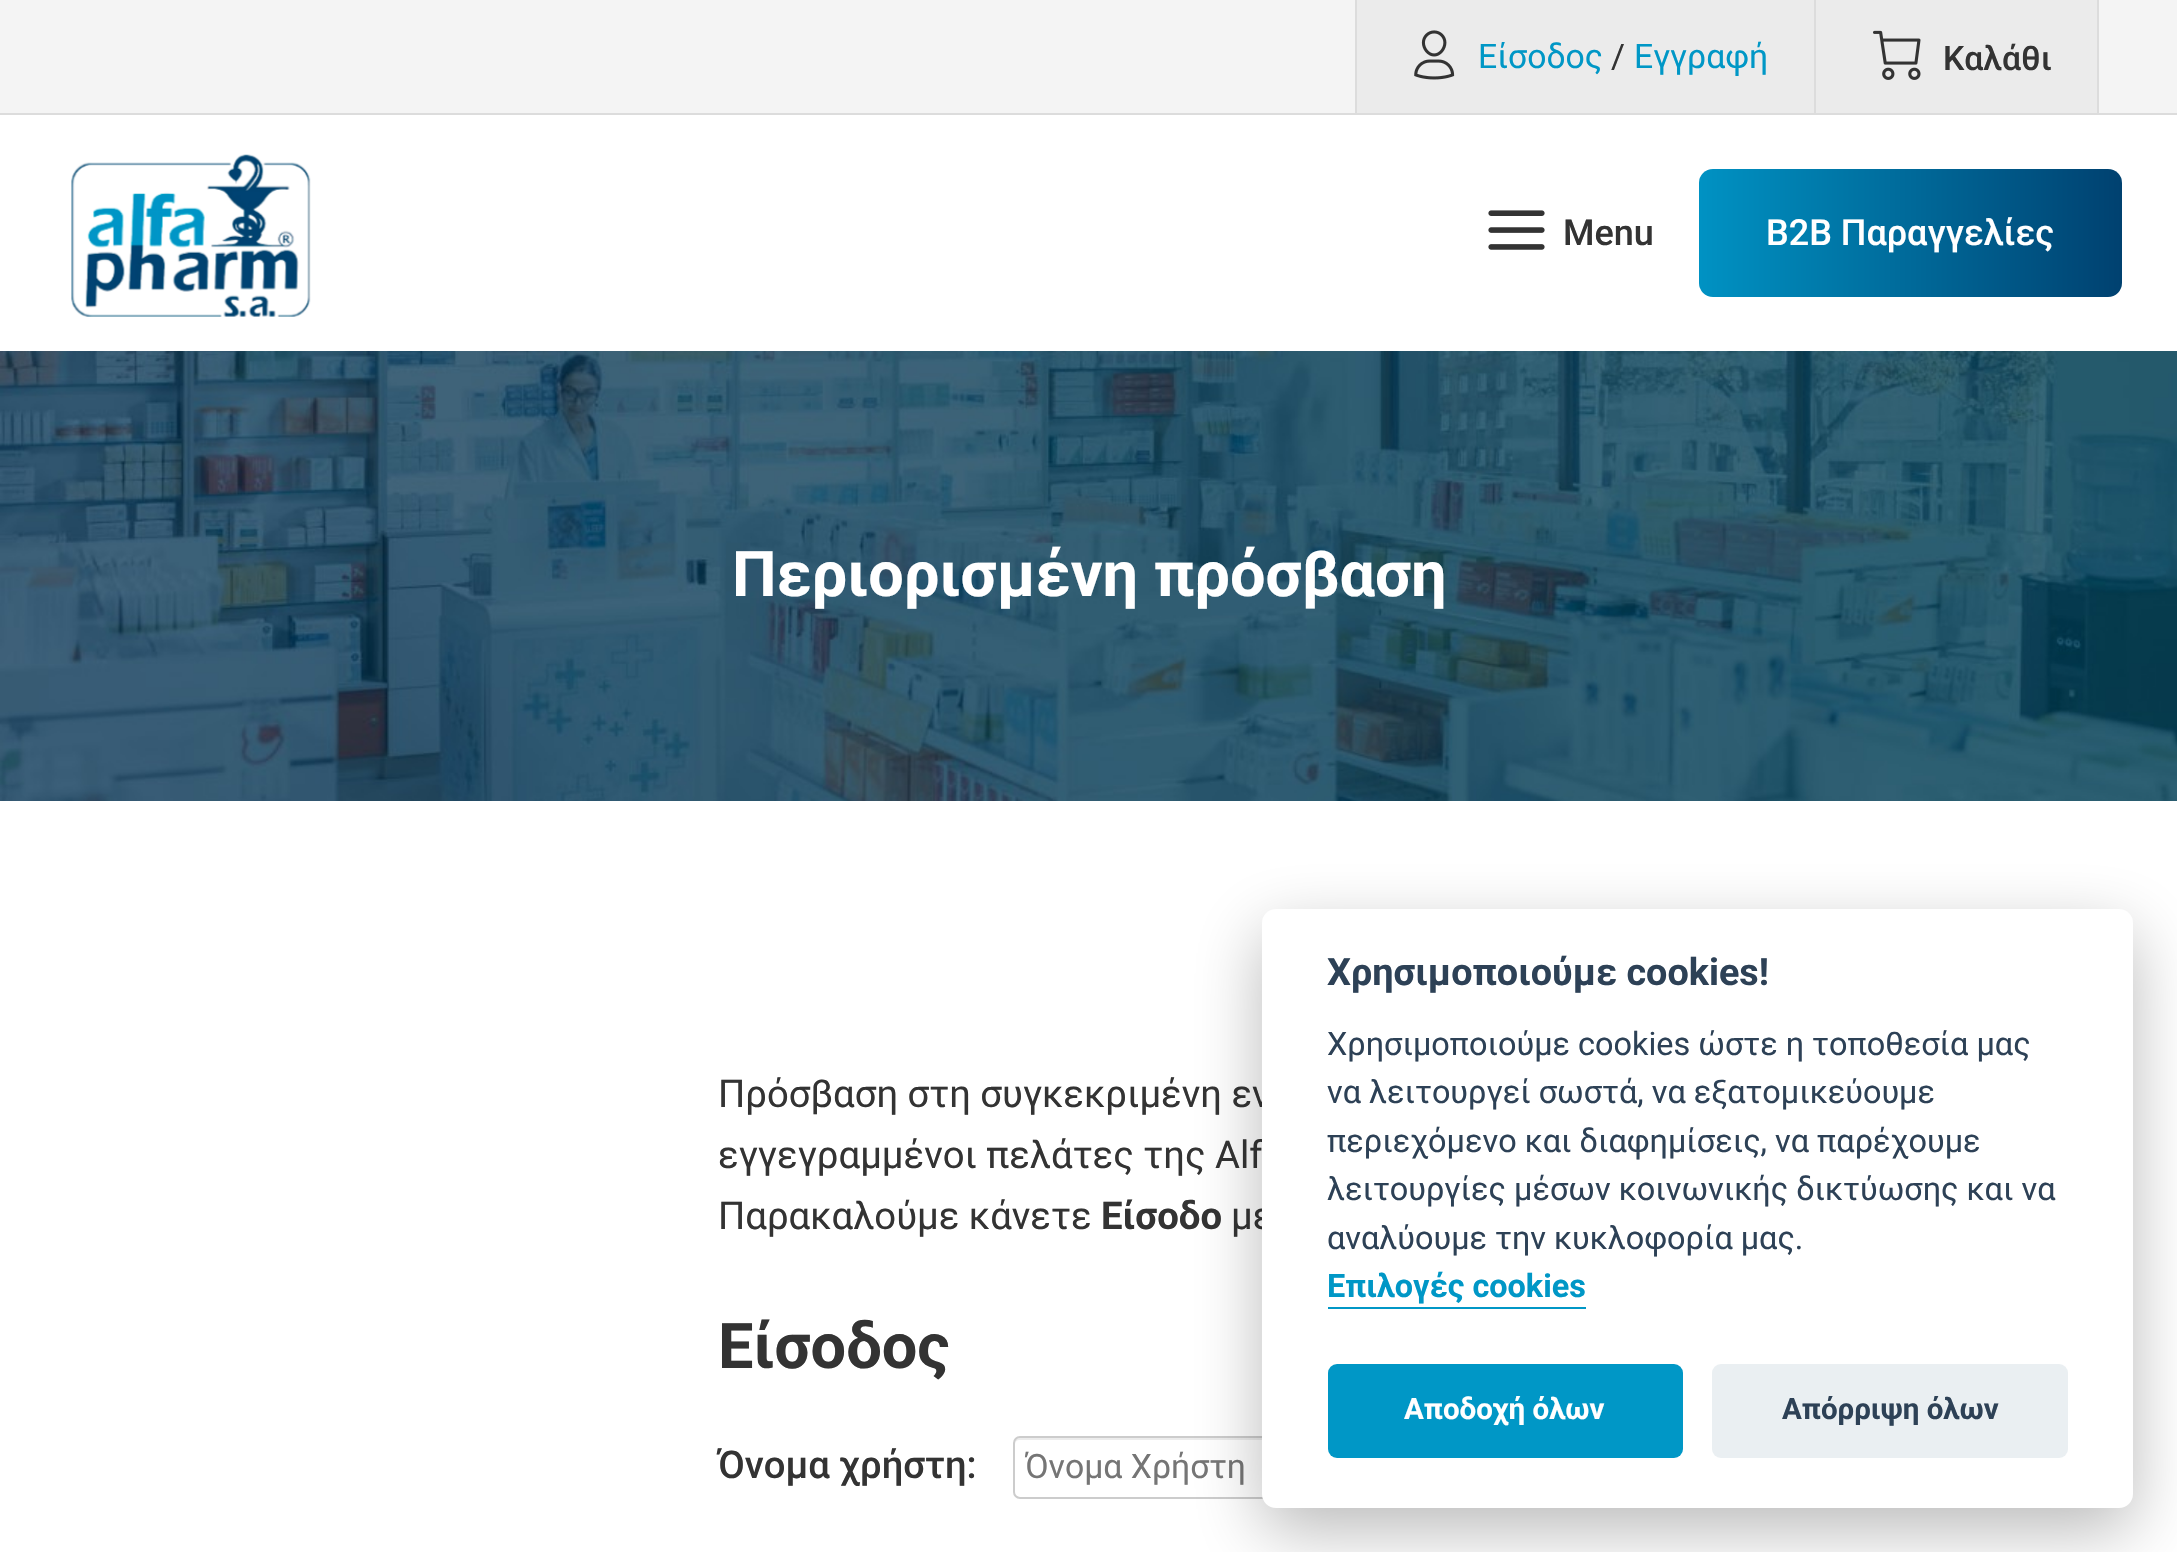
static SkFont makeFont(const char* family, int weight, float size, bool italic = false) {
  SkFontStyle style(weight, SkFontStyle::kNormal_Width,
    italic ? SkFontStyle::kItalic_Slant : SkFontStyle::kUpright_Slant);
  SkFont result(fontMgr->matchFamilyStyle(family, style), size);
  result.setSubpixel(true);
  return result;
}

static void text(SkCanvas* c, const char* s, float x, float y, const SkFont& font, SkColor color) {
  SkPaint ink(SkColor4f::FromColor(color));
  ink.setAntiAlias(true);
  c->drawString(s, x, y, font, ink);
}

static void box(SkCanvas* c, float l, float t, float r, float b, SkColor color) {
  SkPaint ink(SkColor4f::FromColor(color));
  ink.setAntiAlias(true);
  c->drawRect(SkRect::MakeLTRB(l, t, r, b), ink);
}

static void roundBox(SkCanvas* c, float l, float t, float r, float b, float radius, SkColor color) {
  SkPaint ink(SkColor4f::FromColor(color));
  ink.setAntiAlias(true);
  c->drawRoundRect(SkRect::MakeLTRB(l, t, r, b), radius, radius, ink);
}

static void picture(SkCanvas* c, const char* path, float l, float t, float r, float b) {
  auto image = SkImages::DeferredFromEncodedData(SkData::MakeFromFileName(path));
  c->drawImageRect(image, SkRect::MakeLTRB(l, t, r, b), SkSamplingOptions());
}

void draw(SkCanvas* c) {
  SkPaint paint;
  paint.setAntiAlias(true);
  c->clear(0xffffffff);
  box(c, 0, 0, 2177, 113, 0xfff4f4f4);
  box(c, 0, 113, 2177, 115, 0xffdcdcdc);
  box(c, 1357, 0, 1814, 113, 0xffebebeb);
  box(c, 1355, 0, 1357, 113, 0xffdcdcdc);
  picture(c, "img_01.png", 1414, 30, 1455, 80);
  SkFont face1 = makeFont("Roboto", 400, 33.75f);
  text(c, "Είσοδος", 1478, 68, face1, 0xff0097c6);
  text(c, "/", 1611, 68, face1, 0xff333333);
  text(c, "Εγγραφή", 1634, 68, face1, 0xff0097c6);
  box(c, 1816, 0, 2097, 113, 0xffebebeb);
  box(c, 2097, 0, 2099, 113, 0xffdcdcdc);
  box(c, 1814, 0, 1816, 113, 0xffdcdcdc);
  picture(c, "img_02.png", 1873, 30, 1921, 80);
  SkFont face2 = makeFont("Roboto", 500, 33.75f);
  text(c, "Καλάθι", 1943, 70, face2, 0xff333333);
  picture(c, "img_03.png", 71, 154, 311, 317);
  picture(c, "img_04.png", 1488, 210, 1545, 250);
  SkFont face3 = makeFont("Roboto", 500, 36);
  text(c, "Menu", 1563, 245, face3, 0xff333333);
  {
    const SkColor colors[] = {0xff0092c3, 0xff004170};
    const float stops[] = {0, 1};
    const SkPoint ends[] = {{1699, 233}, {2122, 233}};
    paint.setShader(SkGradientShader::MakeLinear(ends, colors, stops, 2, SkTileMode::kClamp));
    paint.setAlpha(255);
  }
  c->drawRoundRect(SkRect::MakeLTRB(1699, 169, 2122, 297), 14, 14, paint);
  text(c, "B2B Παραγγελίες", 1766, 245, face3, 0xffffffff);
  picture(c, "img_05.png", 0, 351, 2177, 801);
  SkFont face4 = makeFont("Roboto", 700, 63);
  text(c, "Περιορισμένη πρόσβαση", 732, 596, face4, 0xffffffff);
  SkFont face5 = makeFont("Roboto", 400, 38.25f);
  text(c, "Πρόσβαση στη συγκεκριμένη εν", 718, 1107, face5, 0xff333333);
  text(c, "εγγεγραμμένοι πελάτες της Alf", 718, 1168, face5, 0xff333333);
  text(c, "Παρακαλούμε κάνετε", 718, 1229, face5, 0xff333333);
  SkFont face6 = makeFont("Roboto", 700, 38.25f);
  text(c, "Είσοδο", 1101, 1229, face6, 0xff333333);
  text(c, "με", 1231, 1229, face5, 0xff333333);
  text(c, "Είσοδος", 718, 1368, face4, 0xff333333);
  SkFont face7 = makeFont("Roboto", 500, 38.25f);
  text(c, "Όνομα χρήστη:", 718, 1478, face7, 0xff333333);
  paint.setShader(nullptr);
  paint.setColor(0xffececec);
  c->drawPath(SkPathBuilder().moveTo(1019, 1440).lineTo(1681, 1440).cubicTo(1683, 1440, 1685, 1442, 1685, 1444).lineTo(1685, 1443).cubicTo(1685, 1440, 1683, 1438, 1680, 1438).lineTo(1020, 1438).cubicTo(1017, 1438, 1015, 1440, 1015, 1443).lineTo(1015, 1444).cubicTo(1015, 1442, 1017, 1440, 1019, 1440).close().detach(), paint);
  paint.setStyle(SkPaint::kStroke_Style);
  paint.setStrokeWidth(2);
  paint.setColor(0xffcccccc);
  c->drawRoundRect(SkRect::MakeLTRB(1014, 1437, 1687, 1498), 6, 6, paint);
  text(c, "Όνομα Χρήστη", 1025, 1478, face1, 0xff757575);
  paint.setStyle(SkPaint::kFill_Style);
  paint.setColor(0x47020203);
  paint.setMaskFilter(SkMaskFilter::MakeBlur(kNormal_SkBlurStyle, 34));
  c->drawRoundRect(SkRect::MakeLTRB(1262, 932, 2133, 1530), 14, 14, paint);
  paint.setMaskFilter(nullptr);
  roundBox(c, 1262, 909, 2133, 1508, 14, 0xffffffff);
  SkFont face8 = makeFont("Roboto", 700, 37.75f);
  text(c, "Χρησιμοποιούμε cookies!", 1327, 985, face8, 0xff2d4156);
  SkFont face9 = makeFont("Roboto", 400, 32.4f);
  text(c, "Χρησιμοποιούμε cookies ώστε η τοποθεσία μας", 1327, 1055, face9, 0xff2d4156);
  text(c, "να λειτουργεί σωστά, να εξατομικεύουμε", 1327, 1103, face9, 0xff2d4156);
  text(c, "περιεχόμενο και διαφημίσεις, να παρέχουμε", 1327, 1152, face9, 0xff2d4156);
  text(c, "λειτουργίες μέσων κοινωνικής δικτύωσης και να", 1327, 1200, face9, 0xff2d4156);
  text(c, "αναλύουμε την κυκλοφορία μας.", 1327, 1249, face9, 0xff2d4156);
  SkFont face10 = makeFont("Roboto", 700, 32.4f);
  text(c, "Επιλογές cookies", 1327, 1297, face10, 0xff0097c6);
  box(c, 1328, 1307, 1586, 1309, 0xff0097c6);
  roundBox(c, 1328, 1364, 1683, 1458, 9, 0xff0097c6);
  SkFont face11 = makeFont("Roboto", 700, 29.5f);
  text(c, "Αποδοχή όλων", 1404, 1419, face11, 0xffffffff);
  roundBox(c, 1712, 1364, 2068, 1458, 9, 0xffeaeff2);
  text(c, "Απόρριψη όλων", 1782, 1419, face11, 0xff2d4156);
}
